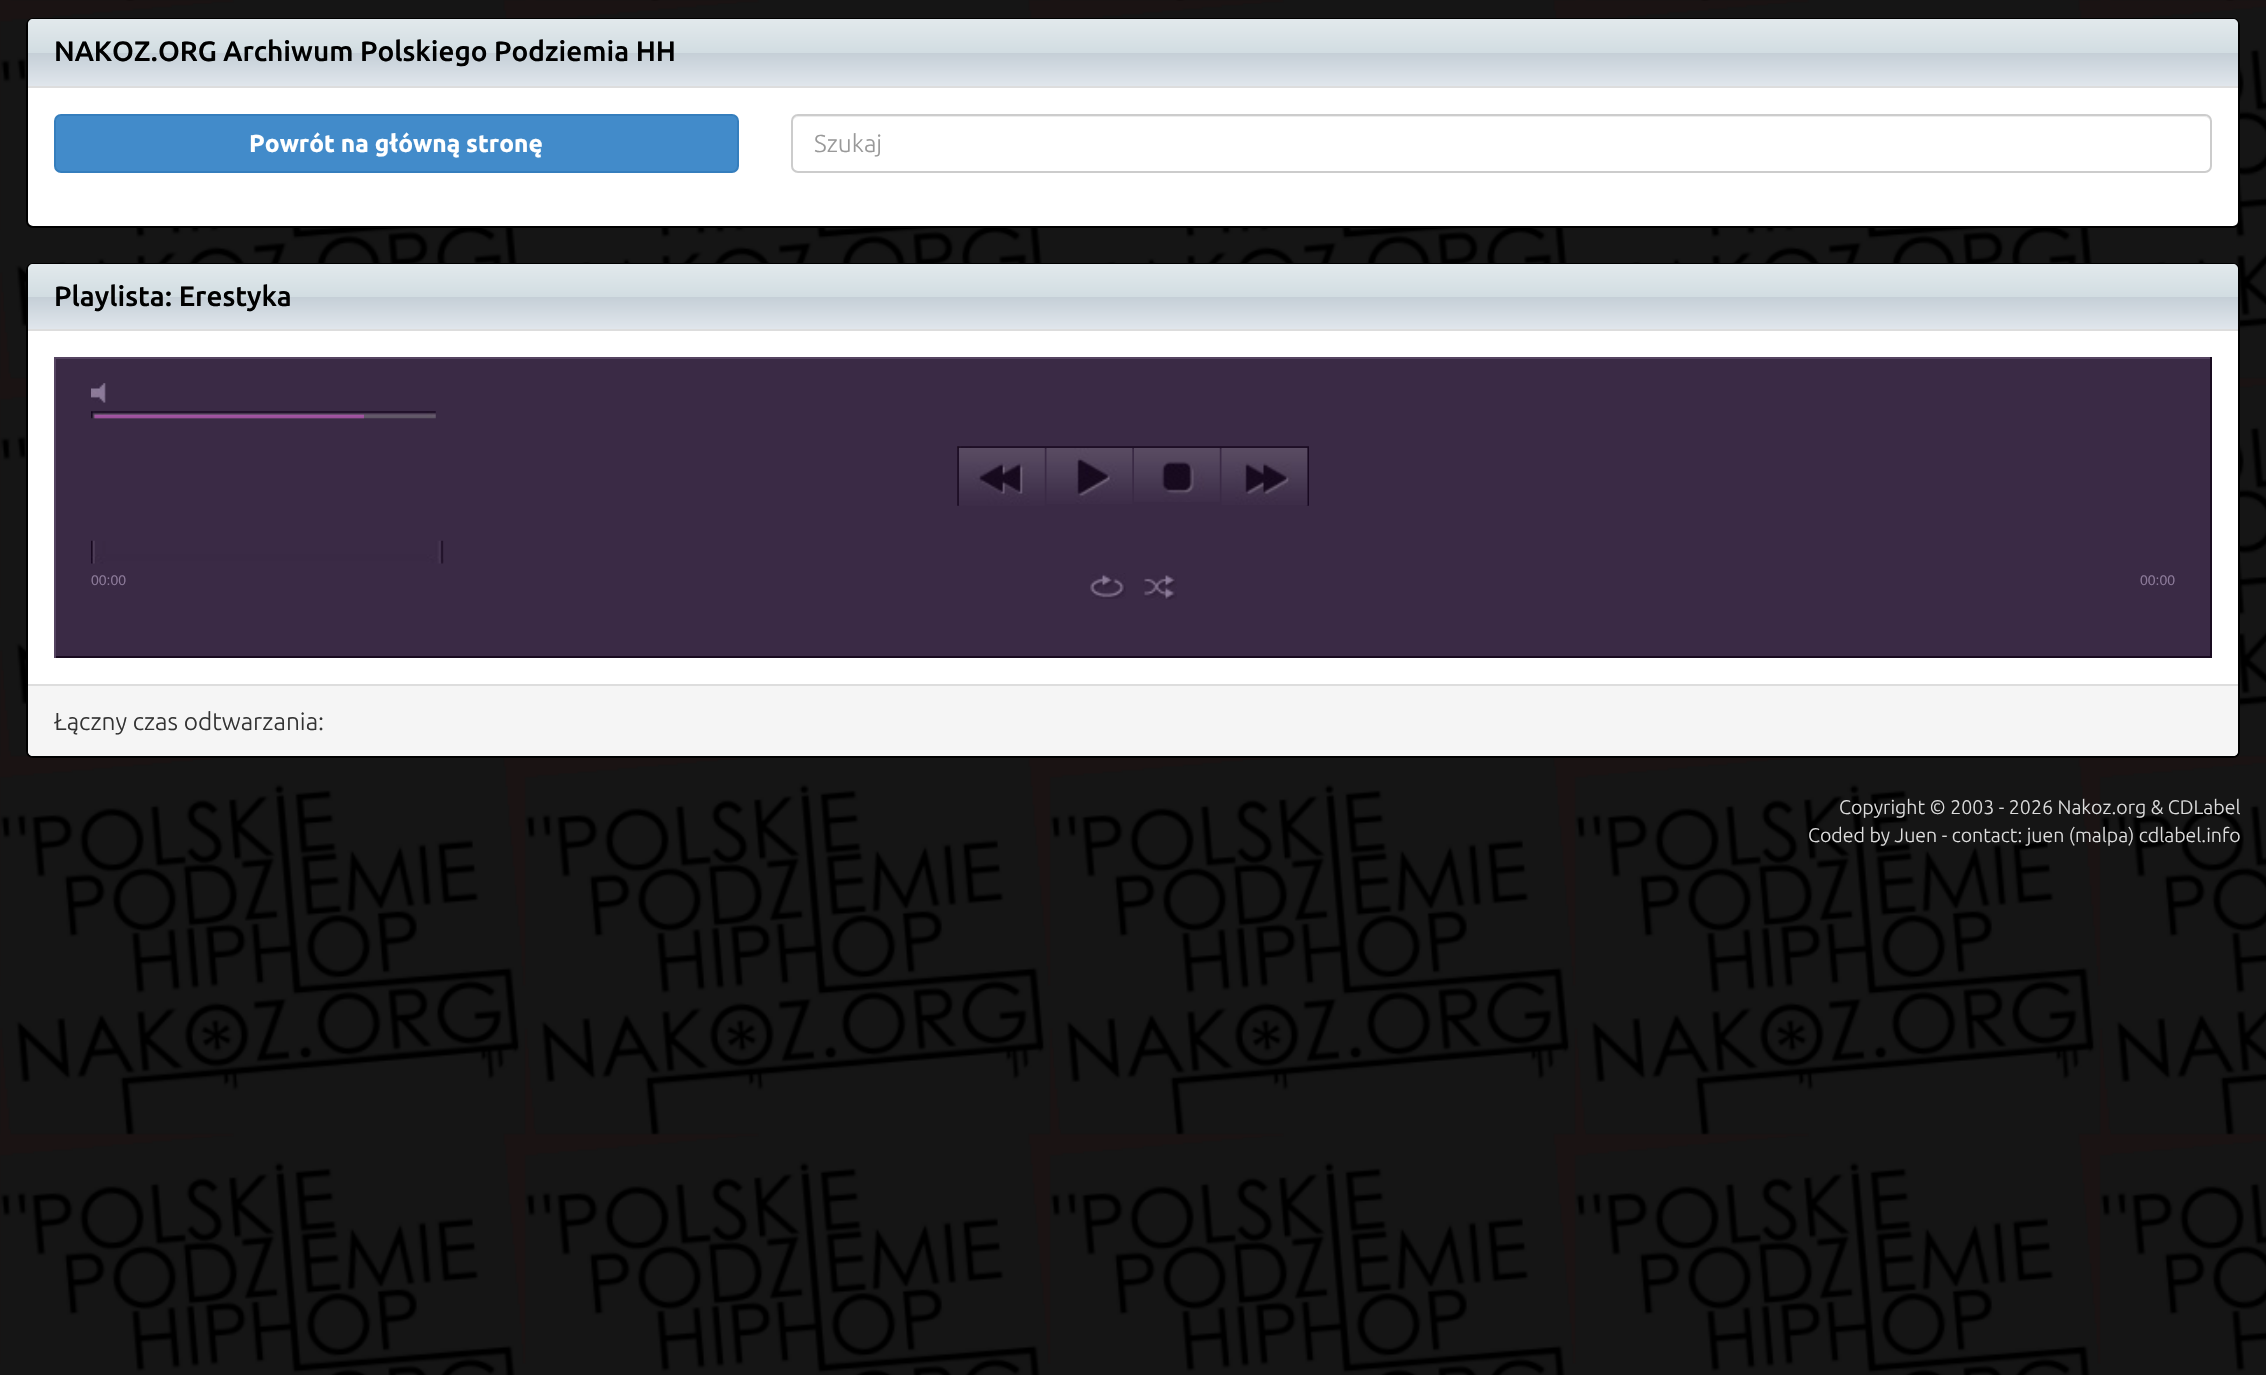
static SkFont makeFont(const char* family, int weight, float size, bool italic = false) {
  SkFontStyle style(weight, SkFontStyle::kNormal_Width,
    italic ? SkFontStyle::kItalic_Slant : SkFontStyle::kUpright_Slant);
  SkFont result(fontMgr->matchFamilyStyle(family, style), size);
  result.setSubpixel(true);
  return result;
}

static void text(SkCanvas* c, const char* s, float x, float y, const SkFont& font, SkColor color) {
  SkPaint ink(SkColor4f::FromColor(color));
  ink.setAntiAlias(true);
  c->drawString(s, x, y, font, ink);
}

static void box(SkCanvas* c, float l, float t, float r, float b, SkColor color) {
  SkPaint ink(SkColor4f::FromColor(color));
  ink.setAntiAlias(true);
  c->drawRect(SkRect::MakeLTRB(l, t, r, b), ink);
}

static void picture(SkCanvas* c, const char* path, float l, float t, float r, float b) {
  auto image = SkImages::DeferredFromEncodedData(SkData::MakeFromFileName(path));
  c->drawImageRect(image, SkRect::MakeLTRB(l, t, r, b), SkSamplingOptions());
}

void draw(SkCanvas* c) {
  SkPaint paint;
  paint.setAntiAlias(true);
  c->clear(0xffffffff);
  picture(c, "img_01.png", 0, 0, 2266, 1375);
  paint.setColor(0xffffffff);
  c->drawRoundRect(SkRect::MakeLTRB(27, 19, 2239, 227), 6, 6, paint);
  paint.setStyle(SkPaint::kStroke_Style);
  paint.setStrokeWidth(2);
  paint.setColor(0xff000000);
  c->drawRoundRect(SkRect::MakeLTRB(27, 19, 2239, 227), 6, 6, paint);
  paint.setStyle(SkPaint::kFill_Style);
  {
    const SkColor colors[] = {0xffe2e9ec, 0xffd2dde2, 0xffc5cfd7, 0xffe0e6ec};
    const float stops[] = {0, 0.5f, 0.51f, 1};
    const SkPoint ends[] = {{1133, 19}, {1133, 86}};
    paint.setShader(SkGradientShader::MakeLinear(ends, colors, stops, 4, SkTileMode::kClamp));
    paint.setAlpha(255);
  }
  c->drawPath(SkPathBuilder().moveTo(33, 19).lineTo(2233, 19).cubicTo(2236, 19, 2238, 21, 2238, 24).lineTo(2238, 86).lineTo(28, 86).lineTo(28, 24).cubicTo(28, 21, 30, 19, 33, 19).close().detach(), paint);
  box(c, 28, 86, 2238, 88, 0xffdddddd);
  SkFont face1 = makeFont("Ubuntu", 500, 28);
  text(c, "NAKOZ.ORG Archiwum Polskiego Podziemia HH", 54, 61, face1, 0xff000000);
  paint.setShader(nullptr);
  paint.setColor(0xff428bca);
  c->drawRoundRect(SkRect::MakeLTRB(55, 115, 738, 172), 6, 6, paint);
  paint.setStyle(SkPaint::kStroke_Style);
  paint.setColor(0xff357ebd);
  c->drawRoundRect(SkRect::MakeLTRB(55, 115, 738, 172), 6, 6, paint);
  SkFont face2 = makeFont("Ubuntu", 700, 24.5f);
  text(c, "Powrót na główną stronę", 249, 152, face2, 0xffffffff);
  paint.setStyle(SkPaint::kFill_Style);
  paint.setColor(0xffececec);
  c->drawPath(SkPathBuilder().moveTo(798, 117).lineTo(2205, 117).cubicTo(2208, 117, 2210, 120, 2210, 122).cubicTo(2210, 119, 2208, 116, 2205, 116).lineTo(798, 116).cubicTo(795, 116, 793, 119, 793, 122).cubicTo(793, 120, 795, 117, 798, 117).close().detach(), paint);
  paint.setStyle(SkPaint::kStroke_Style);
  paint.setColor(0xffcccccc);
  c->drawRoundRect(SkRect::MakeLTRB(792, 115, 2211, 172), 6, 6, paint);
  SkFont face3 = makeFont("Ubuntu", 300, 24.5f);
  text(c, "Szukaj", 814, 152, face3, 0xff999999);
  paint.setStyle(SkPaint::kFill_Style);
  paint.setColor(0xffffffff);
  c->drawRoundRect(SkRect::MakeLTRB(27, 264, 2239, 757), 6, 6, paint);
  paint.setStyle(SkPaint::kStroke_Style);
  paint.setColor(0xff000000);
  c->drawRoundRect(SkRect::MakeLTRB(27, 264, 2239, 757), 6, 6, paint);
  paint.setStyle(SkPaint::kFill_Style);
  {
    const SkColor colors[] = {0xffe2e9ec, 0xffd2dde2, 0xffc5cfd7, 0xffe0e6ec};
    const float stops[] = {0, 0.5f, 0.51f, 1};
    const SkPoint ends[] = {{1133, 264}, {1133, 329}};
    paint.setShader(SkGradientShader::MakeLinear(ends, colors, stops, 4, SkTileMode::kClamp));
    paint.setAlpha(255);
  }
  c->drawPath(SkPathBuilder().moveTo(33, 264).lineTo(2233, 264).cubicTo(2236, 264, 2238, 266, 2238, 269).lineTo(2238, 329).lineTo(28, 329).lineTo(28, 269).cubicTo(28, 266, 30, 264, 33, 264).close().detach(), paint);
  box(c, 28, 329, 2238, 331, 0xffdddddd);
  text(c, "Playlista: Erestyka", 54, 306, face1, 0xff000000);
  box(c, 56, 359, 2210, 656, 0xff3a2a45);
  box(c, 54, 357, 2212, 359, 0xff554461);
  box(c, 2210, 357, 2212, 658, 0xff180a1f);
  box(c, 54, 656, 2212, 658, 0xff180a1f);
  box(c, 54, 357, 56, 658, 0xff554461);
  picture(c, "img_02.png", 91, 383, 106, 403);
  picture(c, "img_03.png", 91, 411, 436, 419);
  picture(c, "img_04.png", 94, 414, 364, 419);
  picture(c, "img_05.png", 957, 446, 1309, 506);
  picture(c, "img_06.png", 959, 448, 1045, 506);
  picture(c, "img_07.png", 1046, 448, 1133, 504);
  picture(c, "img_08.png", 1134, 448, 1220, 502);
  picture(c, "img_09.png", 1221, 448, 1308, 505);
  picture(c, "img_10.png", 91, 540, 444, 564);
  SkFont face4 = makeFont("Liberation Sans", 400, 14);
  text(c, "00:00", 91, 585, face4, 0xff8c7a99);
  picture(c, "img_11.png", 1090, 573, 1126, 599);
  picture(c, "img_12.png", 1143, 575, 1177, 600);
  text(c, "00:00", 2140, 585, face4, 0xff8c7a99);
  paint.setShader(nullptr);
  paint.setColor(0xfff5f5f5);
  c->drawPath(SkPathBuilder().moveTo(28, 684).lineTo(2238, 684).lineTo(2238, 751).cubicTo(2238, 754, 2236, 756, 2233, 756).lineTo(33, 756).cubicTo(30, 756, 28, 754, 28, 751).close().detach(), paint);
  box(c, 28, 684, 2238, 686, 0xffdddddd);
  text(c, "Łączny czas odtwarzania:", 54, 730, face3, 0xff333333);
  SkFont face5 = makeFont("Ubuntu", 300, 19.6f);
  text(c, "Copyright © 2003 - 2026 Nakoz.org & CDLabel", 1839, 814, face5, 0xffdddddd);
  text(c, "Coded by Juen - contact: juen (malpa) cdlabel.info", 1808, 842, face5, 0xffdddddd);
}
